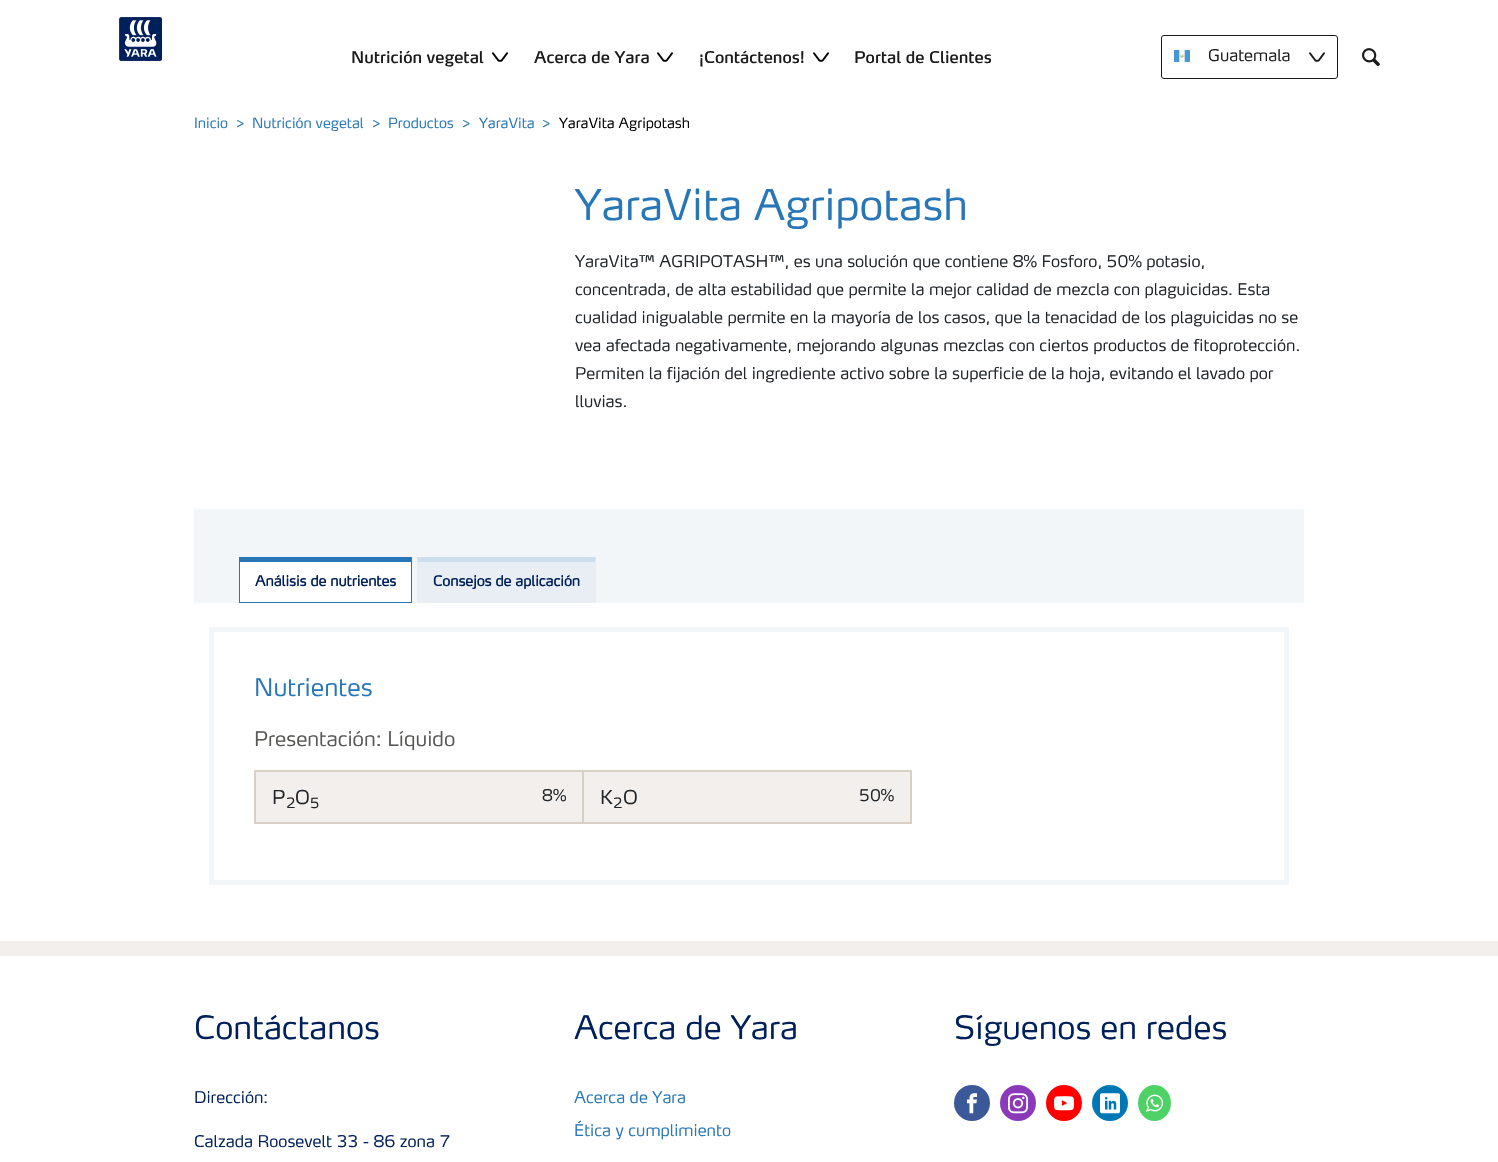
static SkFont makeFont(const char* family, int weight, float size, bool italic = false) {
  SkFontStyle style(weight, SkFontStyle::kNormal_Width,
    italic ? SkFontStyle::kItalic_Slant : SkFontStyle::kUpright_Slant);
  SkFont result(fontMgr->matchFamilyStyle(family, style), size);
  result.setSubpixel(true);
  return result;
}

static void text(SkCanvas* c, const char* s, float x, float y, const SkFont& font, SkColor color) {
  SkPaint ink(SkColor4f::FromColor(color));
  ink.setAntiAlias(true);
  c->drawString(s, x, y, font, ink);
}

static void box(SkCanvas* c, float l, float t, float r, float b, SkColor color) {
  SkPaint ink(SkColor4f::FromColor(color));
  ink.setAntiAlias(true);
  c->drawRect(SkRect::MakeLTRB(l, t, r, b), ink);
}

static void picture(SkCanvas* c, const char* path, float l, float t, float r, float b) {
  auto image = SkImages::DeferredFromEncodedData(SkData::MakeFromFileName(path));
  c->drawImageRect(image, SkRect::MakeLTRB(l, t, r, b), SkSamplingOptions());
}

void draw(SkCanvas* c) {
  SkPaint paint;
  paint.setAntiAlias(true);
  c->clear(0xffffffff);
  picture(c, "img_01.png", 119, 17, 163, 61);
  SkFont face1 = makeFont("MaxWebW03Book", 400, 16);
  text(c, "Nutrición vegetal", 351, 63, face1, 0xff1a1a1a);
  picture(c, "img_02.png", 492, 52, 508, 62);
  text(c, "Acerca de Yara", 534, 63, face1, 0xff1a1a1a);
  picture(c, "img_02.png", 657, 52, 673, 62);
  text(c, "¡Contáctenos!", 699, 63, face1, 0xff1a1a1a);
  picture(c, "img_02.png", 813, 52, 829, 62);
  text(c, "Portal de Clientes", 854, 63, face1, 0xff1a1a1a);
  paint.setStyle(SkPaint::kStroke_Style);
  paint.setStrokeWidth(1);
  paint.setColor(0xff1a1a1a);
  c->drawRoundRect(SkRect::MakeLTRB(1161.5f, 35.5f, 1337.5f, 78.5f), 2.5f, 2.5f, paint);
  picture(c, "img_03.png", 1174, 50, 1190, 62);
  SkFont face2 = makeFont("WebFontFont", 300, 16);
  text(c, "Guatemala", 1208, 61, face2, 0xff1a1a1a);
  picture(c, "img_04.png", 1309, 52, 1325, 62);
  picture(c, "img_05.png", 1362, 48, 1380, 67);
  SkFont face3 = makeFont("WebFontFont", 300, 14);
  text(c, "Inicio", 194, 128, face3, 0xff2777b8);
  text(c, ">", 236, 128, face3, 0xff2777b8);
  text(c, "Nutrición vegetal", 252, 128, face3, 0xff2777b8);
  text(c, ">", 372, 128, face3, 0xff2777b8);
  text(c, "Productos", 388, 128, face3, 0xff2777b8);
  text(c, ">", 462, 128, face3, 0xff2777b8);
  text(c, "YaraVita", 479, 128, face3, 0xff2777b8);
  text(c, ">", 542, 128, face3, 0xff2777b8);
  text(c, "YaraVita Agripotash", 559, 128, face3, 0xff000000);
  SkFont face4 = makeFont("WebFontFont", 300, 42);
  text(c, "YaraVita Agripotash", 575, 220, face4, 0xff2777b8);
  text(c, "YaraVita™ AGRIPOTASH™, es una solución que contiene 8% Fosforo, 50% potasio,", 575, 267, face2, 0xff212529);
  text(c, "concentrada, de alta estabilidad que permite la mejor calidad de mezcla con plaguicidas. Esta", 575, 295, face2, 0xff212529);
  text(c, "cualidad inigualable permite en la mayoría de los casos, que la tenacidad de los plaguicidas no se", 575, 323, face2, 0xff212529);
  text(c, "vea afectada negativamente, mejorando algunas mezclas con ciertos productos de fitoprotección.", 575, 351, face2, 0xff212529);
  text(c, "Permiten la fijación del ingrediente activo sobre la superficie de la hoja, evitando el lavado por", 575, 379, face2, 0xff212529);
  text(c, "lluvias.", 575, 407, face2, 0xff212529);
  box(c, 194, 509, 1304, 603, 0xfff3f6f9);
  box(c, 240, 562, 411, 602, 0xffffffff);
  box(c, 239, 557, 412, 562, 0xff2777b8);
  box(c, 411, 557, 412, 603, 0xff2777b8);
  box(c, 239, 602, 412, 603, 0xff2777b8);
  box(c, 239, 557, 240, 603, 0xff2777b8);
  SkFont face5 = makeFont("WebFontFont", 700, 14);
  text(c, "Análisis de nutrientes", 255, 586, face5, 0xff00205b);
  box(c, 417, 557, 596, 603, 0xffe9eef4);
  paint.setStyle(SkPaint::kFill_Style);
  paint.setColor(0xffcddeee);
  c->drawPath(SkPathBuilder().moveTo(417, 557).lineTo(596, 557).lineTo(595, 562).lineTo(418, 562).close().detach(), paint);
  text(c, "Consejos de aplicación", 433, 586, face5, 0xff00205b);
  paint.setStyle(SkPaint::kStroke_Style);
  paint.setStrokeWidth(5);
  paint.setColor(0xfff3f6f9);
  c->drawRect(SkRect::MakeLTRB(211.5f, 629.5f, 1286.5f, 882.5f), paint);
  SkFont face6 = makeFont("WebFontFont", 300, 24);
  text(c, "Nutrientes", 254, 696, face6, 0xff2777b8);
  SkFont face7 = makeFont("WebFontFont", 300, 20);
  text(c, "Presentación: Líquido", 254, 746, face7, 0xff575756);
  paint.setStyle(SkPaint::kFill_Style);
  paint.setColor(0xfff2efec);
  c->drawRect(SkRect::MakeLTRB(255, 771, 583, 823), paint);
  paint.setStyle(SkPaint::kStroke_Style);
  paint.setStrokeWidth(2);
  paint.setColor(0xffd8d0c7);
  c->drawRect(SkRect::MakeLTRB(255, 771, 583, 823), paint);
  SkFont face8 = makeFont("WebFontFont", 300, 19);
  text(c, "P", 272, 804, face8, 0xff212529);
  text(c, "2", 286, 808, face3, 0xff212529);
  text(c, "O", 295, 804, face8, 0xff212529);
  text(c, "5", 310, 808, face3, 0xff212529);
  text(c, "8%", 542, 801, face2, 0xff212529);
  paint.setStyle(SkPaint::kFill_Style);
  paint.setColor(0xfff2efec);
  c->drawRect(SkRect::MakeLTRB(583, 771, 911, 823), paint);
  paint.setStyle(SkPaint::kStroke_Style);
  paint.setColor(0xffd8d0c7);
  c->drawRect(SkRect::MakeLTRB(583, 771, 911, 823), paint);
  text(c, "K", 600, 804, face8, 0xff212529);
  text(c, "2", 613, 808, face3, 0xff212529);
  text(c, "O", 623, 804, face8, 0xff212529);
  text(c, "50%", 859, 801, face2, 0xff212529);
  box(c, 0, 941, 1498, 956, 0xfff2efec);
  SkFont face9 = makeFont("WebFontFont", 300, 32);
  text(c, "Contáctanos", 194, 1039, face9, 0xff00205b);
  text(c, "Dirección:", 194, 1103, face2, 0xff00205b);
  text(c, "Calzada Roosevelt 33 - 86 zona 7", 194, 1147, face2, 0xff00205b);
  text(c, "Acerca de Yara", 574, 1039, face9, 0xff00205b);
  text(c, "Acerca de Yara", 574, 1103, face2, 0xff2777b8);
  text(c, "Ética y cumplimiento", 574, 1136, face2, 0xff2777b8);
  text(c, "Síguenos en redes", 954, 1039, face9, 0xff00205b);
  paint.setStyle(SkPaint::kFill_Style);
  paint.setColor(0xff3b5998);
  c->drawCircle(972, 1103, 18, paint);
  picture(c, "img_06.png", 967, 1093, 977, 1114);
  paint.setColor(0xff8a3ab9);
  c->drawCircle(1018, 1103, 18, paint);
  picture(c, "img_07.png", 1008, 1093, 1028, 1114);
  paint.setColor(0xffff0000);
  c->drawCircle(1064, 1103, 18, paint);
  picture(c, "img_08.png", 1054, 1096, 1074, 1111);
  paint.setColor(0xff0077b5);
  c->drawCircle(1110, 1103, 18, paint);
  picture(c, "img_09.png", 1100, 1093, 1120, 1114);
  paint.setColor(0xff4ed266);
  c->drawOval(SkRect::MakeLTRB(1138, 1085, 1171, 1121), paint);
  picture(c, "img_10.png", 1146, 1094, 1164, 1112);
}
